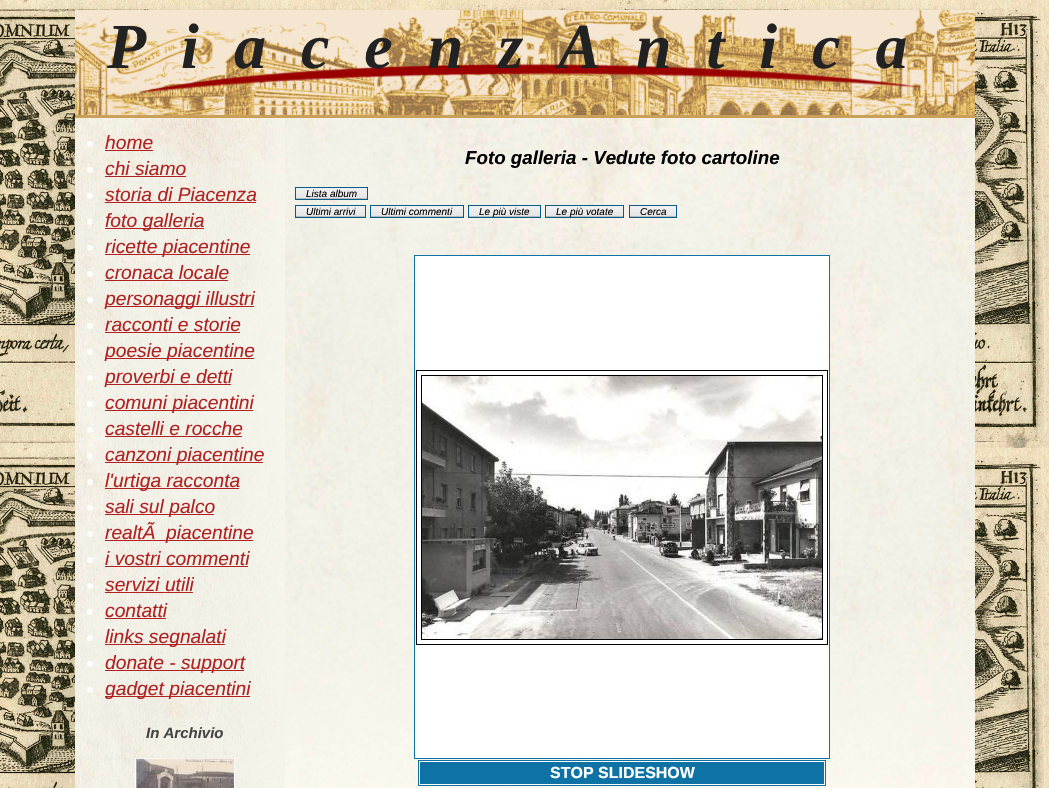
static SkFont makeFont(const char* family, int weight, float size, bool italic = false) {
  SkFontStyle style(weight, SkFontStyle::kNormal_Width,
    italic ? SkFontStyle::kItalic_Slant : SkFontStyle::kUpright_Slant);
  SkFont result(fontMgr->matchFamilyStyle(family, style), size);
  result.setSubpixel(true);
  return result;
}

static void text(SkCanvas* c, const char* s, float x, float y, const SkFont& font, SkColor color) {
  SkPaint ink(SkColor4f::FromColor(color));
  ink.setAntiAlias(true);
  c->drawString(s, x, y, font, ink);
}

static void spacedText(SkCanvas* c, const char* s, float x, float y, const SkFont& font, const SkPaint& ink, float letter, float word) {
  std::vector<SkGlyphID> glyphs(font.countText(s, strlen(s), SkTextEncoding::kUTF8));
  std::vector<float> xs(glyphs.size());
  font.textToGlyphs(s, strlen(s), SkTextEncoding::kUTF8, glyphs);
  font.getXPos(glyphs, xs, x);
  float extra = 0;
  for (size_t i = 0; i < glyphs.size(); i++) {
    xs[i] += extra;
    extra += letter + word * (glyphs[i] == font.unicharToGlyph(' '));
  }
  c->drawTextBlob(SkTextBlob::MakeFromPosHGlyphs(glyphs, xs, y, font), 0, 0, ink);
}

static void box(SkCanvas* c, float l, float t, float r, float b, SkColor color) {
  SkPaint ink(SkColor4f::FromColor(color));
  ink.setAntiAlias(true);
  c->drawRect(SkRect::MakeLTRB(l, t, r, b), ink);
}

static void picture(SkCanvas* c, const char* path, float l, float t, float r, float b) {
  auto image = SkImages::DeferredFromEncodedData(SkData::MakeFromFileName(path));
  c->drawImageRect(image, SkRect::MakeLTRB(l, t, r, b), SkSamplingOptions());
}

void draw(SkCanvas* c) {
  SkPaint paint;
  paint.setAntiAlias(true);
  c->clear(0xffffffff);
  picture(c, "img_01.png", 0, 0, 1049, 788);
  picture(c, "img_02.png", 285, 118, 975, 788);
  picture(c, "img_03.png", 75, 10, 975, 115);
  box(c, 75, 115, 975, 118, 0xffca9f58);
  picture(c, "img_04.png", 138, 63, 925, 92);
  SkFont face1 = makeFont("Liberation Serif", 700, 64, true);
  paint.setColor(0xff222222);
  spacedText(c, "PiacenzAntica", 107, 68, face1, paint, 35, 0);
  picture(c, "img_05.png", 75, 118, 285, 788);
  paint.setColor(0xfffdfdfd);
  c->drawCircle(90, 144, 3, paint);
  SkFont face2 = makeFont("Liberation Sans", 400, 19.25f, true);
  text(c, "home", 105, 149, face2, 0xffb02121);
  box(c, 105, 150, 153, 151, 0xffb02121);
  c->drawCircle(90, 170, 3, paint);
  text(c, "chi siamo", 105, 175, face2, 0xffb02121);
  box(c, 105, 176, 186, 177, 0xffb02121);
  c->drawCircle(90, 196, 3, paint);
  text(c, "storia di Piacenza", 105, 201, face2, 0xffb02121);
  box(c, 105, 202, 256, 203, 0xffb02121);
  c->drawCircle(90, 222, 3, paint);
  box(c, 105, 228, 204, 229, 0xffb02121);
  text(c, "foto galleria", 105, 227, face2, 0xffb02121);
  c->drawCircle(90, 248, 3, paint);
  box(c, 105, 254, 250, 255, 0xffb02121);
  text(c, "ricette piacentine", 105, 253, face2, 0xffb02121);
  c->drawCircle(90, 274, 3, paint);
  text(c, "cronaca locale", 105, 279, face2, 0xffb02121);
  box(c, 105, 280, 228, 281, 0xffb02121);
  c->drawCircle(90, 300, 3, paint);
  box(c, 105, 306, 254, 307, 0xffb02121);
  text(c, "personaggi illustri", 105, 305, face2, 0xffb02121);
  c->drawCircle(90, 326, 3, paint);
  text(c, "racconti e storie", 105, 331, face2, 0xffb02121);
  box(c, 105, 332, 240, 333, 0xffb02121);
  c->drawCircle(90, 352, 3, paint);
  box(c, 105, 358, 254, 359, 0xffb02121);
  text(c, "poesie piacentine", 105, 357, face2, 0xffb02121);
  c->drawCircle(90, 378, 3, paint);
  box(c, 105, 384, 231, 385, 0xffb02121);
  text(c, "proverbi e detti", 105, 383, face2, 0xffb02121);
  c->drawCircle(90, 404, 3, paint);
  box(c, 105, 410, 253, 411, 0xffb02121);
  text(c, "comuni piacentini", 105, 409, face2, 0xffb02121);
  c->drawCircle(90, 430, 3, paint);
  text(c, "castelli e rocche", 105, 435, face2, 0xffb02121);
  box(c, 105, 436, 242, 437, 0xffb02121);
  c->drawCircle(90, 456, 3, paint);
  box(c, 105, 462, 263, 463, 0xffb02121);
  text(c, "canzoni piacentine", 105, 461, face2, 0xffb02121);
  c->drawCircle(90, 482, 3, paint);
  box(c, 105, 488, 239, 489, 0xffb02121);
  text(c, "l'urtiga racconta", 105, 487, face2, 0xffb02121);
  c->drawCircle(90, 508, 3, paint);
  box(c, 105, 514, 214, 515, 0xffb02121);
  text(c, "sali sul palco", 105, 513, face2, 0xffb02121);
  c->drawCircle(90, 534, 3, paint);
  box(c, 105, 540, 253, 541, 0xffb02121);
  text(c, "realtÃ  piacentine", 105, 539, face2, 0xffb02121);
  c->drawCircle(90, 560, 3, paint);
  text(c, "i vostri commenti", 105, 565, face2, 0xffb02121);
  box(c, 105, 566, 248, 567, 0xffb02121);
  c->drawCircle(90, 586, 3, paint);
  text(c, "servizi utili", 105, 591, face2, 0xffb02121);
  box(c, 105, 592, 193, 593, 0xffb02121);
  c->drawCircle(90, 612, 3, paint);
  text(c, "contatti", 105, 617, face2, 0xffb02121);
  box(c, 105, 618, 166, 619, 0xffb02121);
  c->drawCircle(90, 638, 3, paint);
  box(c, 105, 644, 225, 645, 0xffb02121);
  text(c, "links segnalati", 105, 643, face2, 0xffb02121);
  c->drawCircle(90, 664, 3, paint);
  box(c, 105, 670, 244, 671, 0xffb02121);
  text(c, "donate - support", 105, 669, face2, 0xffb02121);
  c->drawCircle(90, 690, 3, paint);
  box(c, 105, 696, 250, 697, 0xffb02121);
  text(c, "gadget piacentini", 105, 695, face2, 0xffb02121);
  SkFont face3 = makeFont("Liberation Sans", 700, 15, true);
  text(c, "In Archivio", 146, 738, face3, 0xff444444);
  picture(c, "img_06.png", 135, 758, 235, 788);
  SkFont face4 = makeFont("Liberation Sans", 700, 18.75f, true);
  text(c, "Foto galleria - Vedute foto cartoline", 465, 164, face4, 0xff000000);
  picture(c, "img_07.png", 296, 188, 367, 199);
  paint.setStyle(SkPaint::kStroke_Style);
  paint.setStrokeWidth(1);
  paint.setColor(0xff005d8c);
  c->drawRect(SkRect::MakeLTRB(295.5f, 187.5f, 367.5f, 199.5f), paint);
  SkFont face5 = makeFont("Liberation Sans", 400, 10, true);
  text(c, "Lista album", 306, 197, face5, 0xff000000);
  picture(c, "img_08.png", 296, 206, 365, 217);
  picture(c, "img_09.png", 371, 206, 463, 217);
  picture(c, "img_07.png", 469, 206, 540, 217);
  picture(c, "img_10.png", 546, 206, 623, 217);
  picture(c, "img_11.png", 630, 206, 676, 217);
  c->drawRect(SkRect::MakeLTRB(295.5f, 205.5f, 365.5f, 217.5f), paint);
  text(c, "Ultimi arrivi", 306, 215, face5, 0xff000000);
  c->drawRect(SkRect::MakeLTRB(370.5f, 205.5f, 463.5f, 217.5f), paint);
  text(c, "Ultimi commenti", 381, 215, face5, 0xff000000);
  c->drawRect(SkRect::MakeLTRB(468.5f, 205.5f, 540.5f, 217.5f), paint);
  text(c, "Le più viste", 479, 215, face5, 0xff000000);
  c->drawRect(SkRect::MakeLTRB(545.5f, 205.5f, 623.5f, 217.5f), paint);
  text(c, "Le più votate", 556, 215, face5, 0xff000000);
  c->drawRect(SkRect::MakeLTRB(629.5f, 205.5f, 676.5f, 217.5f), paint);
  text(c, "Cerca", 640, 215, face5, 0xff000000);
  paint.setStyle(SkPaint::kFill_Style);
  paint.setColor(0xffffffff);
  c->drawRect(SkRect::MakeLTRB(414.5f, 255.5f, 829.5f, 758.5f), paint);
  paint.setStyle(SkPaint::kStroke_Style);
  paint.setColor(0xff0e72a4);
  c->drawRect(SkRect::MakeLTRB(414.5f, 255.5f, 829.5f, 758.5f), paint);
  paint.setColor(0xff000000);
  c->drawRect(SkRect::MakeLTRB(416.5f, 370.5f, 827.5f, 644.5f), paint);
  c->drawRect(SkRect::MakeLTRB(421.5f, 375.5f, 822.5f, 639.5f), paint);
  picture(c, "img_12.png", 422, 376, 822, 639);
  paint.setStyle(SkPaint::kFill_Style);
  paint.setColor(0xffffffff);
  c->drawRect(SkRect::MakeLTRB(418.5f, 760.5f, 825.5f, 785.5f), paint);
  paint.setStyle(SkPaint::kStroke_Style);
  paint.setColor(0xff0e72a4);
  c->drawRect(SkRect::MakeLTRB(418.5f, 760.5f, 825.5f, 785.5f), paint);
  box(c, 420, 762, 824, 784, 0xff0e72a4);
  SkFont face6 = makeFont("Liberation Sans", 700, 16);
  text(c, "STOP SLIDESHOW", 550, 778, face6, 0xffffffff);
}
